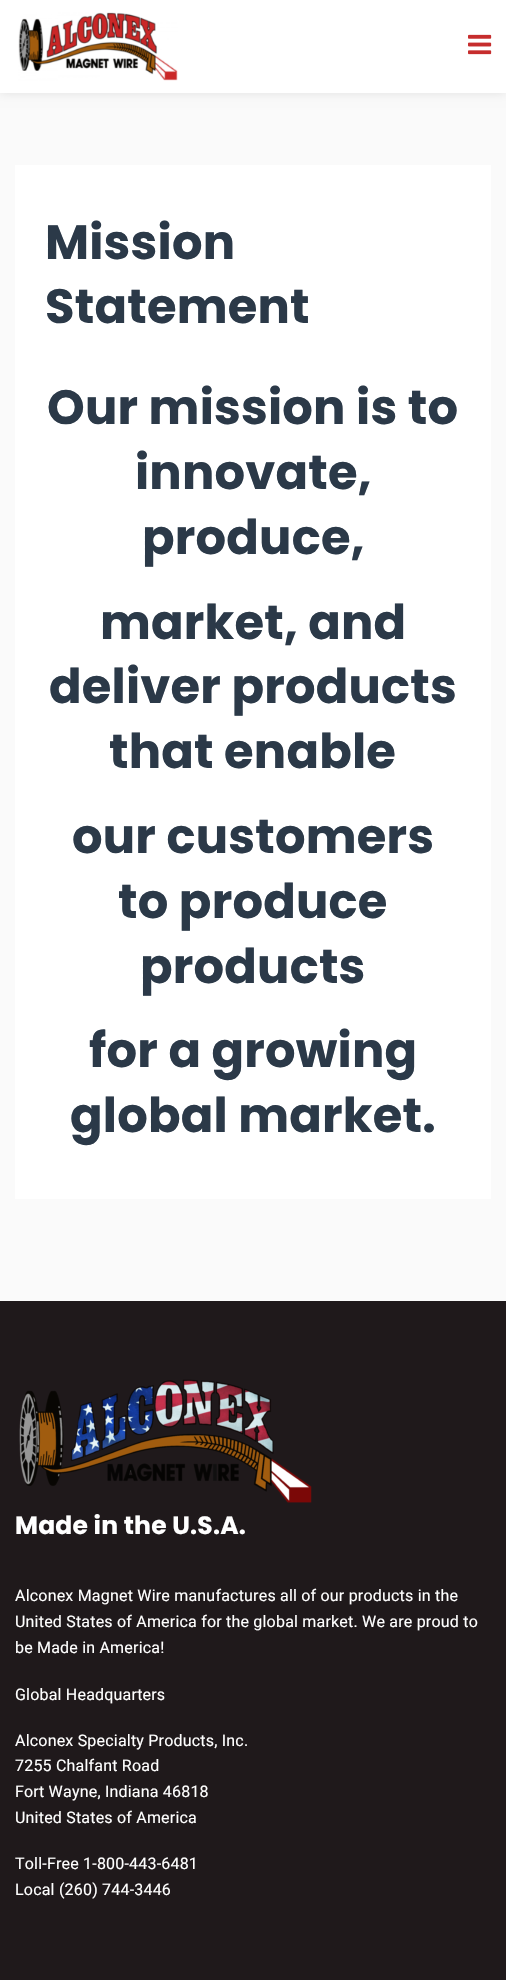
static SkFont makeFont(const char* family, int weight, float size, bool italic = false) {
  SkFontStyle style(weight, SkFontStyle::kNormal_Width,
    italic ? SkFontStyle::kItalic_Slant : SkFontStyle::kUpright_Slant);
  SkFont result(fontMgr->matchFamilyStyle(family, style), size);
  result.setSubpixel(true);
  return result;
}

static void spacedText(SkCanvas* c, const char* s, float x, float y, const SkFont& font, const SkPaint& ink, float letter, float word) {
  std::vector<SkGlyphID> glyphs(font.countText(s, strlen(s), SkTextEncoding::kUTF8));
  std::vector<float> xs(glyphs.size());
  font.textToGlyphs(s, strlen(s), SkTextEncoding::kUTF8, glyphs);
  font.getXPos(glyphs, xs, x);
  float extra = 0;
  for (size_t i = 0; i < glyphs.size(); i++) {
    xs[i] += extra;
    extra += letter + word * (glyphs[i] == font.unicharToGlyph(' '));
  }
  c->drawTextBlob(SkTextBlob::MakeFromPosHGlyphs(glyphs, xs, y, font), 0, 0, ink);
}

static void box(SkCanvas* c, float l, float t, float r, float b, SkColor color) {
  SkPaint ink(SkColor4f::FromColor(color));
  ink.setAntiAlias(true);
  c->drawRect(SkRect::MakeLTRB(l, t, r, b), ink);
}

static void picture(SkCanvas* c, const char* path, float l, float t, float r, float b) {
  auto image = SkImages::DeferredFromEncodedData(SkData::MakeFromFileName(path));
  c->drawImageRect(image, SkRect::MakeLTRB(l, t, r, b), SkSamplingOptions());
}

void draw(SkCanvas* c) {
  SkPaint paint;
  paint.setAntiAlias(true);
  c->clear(0xfffafafa);
  paint.setColor(0x1a000000);
  paint.setMaskFilter(SkMaskFilter::MakeBlur(kNormal_SkBlurStyle, 5));
  c->drawRect(SkRect::MakeLTRB(0, 0, 506, 93), paint);
  paint.setMaskFilter(nullptr);
  box(c, 0, 0, 506, 93, 0xffffffff);
  picture(c, "img_01.png", 18, 12, 178, 81);
  picture(c, "img_02.png", 468, 34, 492, 55);
  box(c, 15, 165, 491, 1199, 0xffffffff);
  SkFont face1 = makeFont("Poppins", 700, 48);
  paint.setColor(0xff2b3948);
  spacedText(c, "Mission", 45, 259, face1, paint, 0.2f, 0);
  spacedText(c, "Statement", 45, 323, face1, paint, 0.2f, 0);
  spacedText(c, "Our mission is to", 47, 424, face1, paint, 0.2f, 0);
  spacedText(c, "innovate,", 135, 489, face1, paint, 0.2f, 0);
  spacedText(c, "produce,", 142, 554, face1, paint, 0.2f, 0);
  spacedText(c, "market, and", 100, 639, face1, paint, 0.2f, 0);
  spacedText(c, "deliver products", 49, 703, face1, paint, 0.2f, 0);
  spacedText(c, "that enable", 109, 768, face1, paint, 0.2f, 0);
  spacedText(c, "our customers", 72, 853, face1, paint, 0.2f, 0);
  spacedText(c, "to produce", 118, 918, face1, paint, 0.2f, 0);
  spacedText(c, "products", 140, 983, face1, paint, 0.2f, 0);
  spacedText(c, "for a growing", 89, 1067, face1, paint, 0.2f, 0);
  spacedText(c, "global market.", 70, 1132, face1, paint, 0.2f, 0);
  box(c, 0, 1301, 506, 1980, 0xff1f191b);
  picture(c, "img_03.png", 19, 1379, 312, 1503);
  SkFont face2 = makeFont("Poppins", 700, 25);
  paint.setColor(0xffffffff);
  spacedText(c, "Made in the U.S.A.", 15, 1534, face2, paint, 0.2f, 0);
  SkFont face3 = makeFont("Roboto", 400, 16);
  spacedText(c, "Alconex Magnet Wire manufactures all of our products in the", 15, 1601, face3, paint, 0.2f, 0);
  spacedText(c, "United States of America for the global market. We are proud to", 15, 1627, face3, paint, 0.2f, 0);
  spacedText(c, "be Made in America!", 15, 1653, face3, paint, 0.2f, 0);
  spacedText(c, "Global Headquarters", 15, 1700, face3, paint, 0.2f, 0);
  spacedText(c, "Alconex Specialty Products, Inc.", 15, 1746, face3, paint, 0.2f, 0);
  spacedText(c, "7255 Chalfant Road", 15, 1771, face3, paint, 0.2f, 0);
  spacedText(c, "Fort Wayne, Indiana 46818", 15, 1797, face3, paint, 0.2f, 0);
  spacedText(c, "United States of America", 15, 1823, face3, paint, 0.2f, 0);
  spacedText(c, "Toll-Free 1-800-443-6481", 15, 1869, face3, paint, 0.2f, 0);
  spacedText(c, "Local (260) 744-3446", 15, 1895, face3, paint, 0.2f, 0);
}
